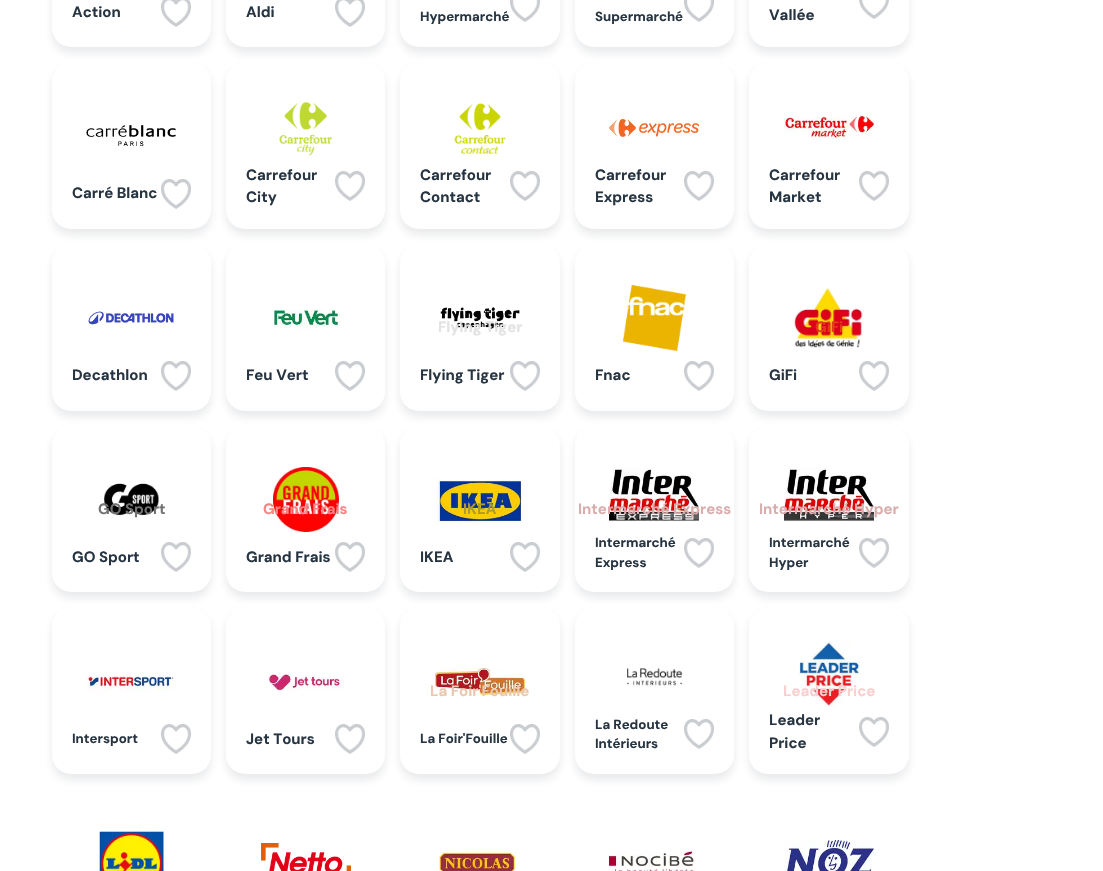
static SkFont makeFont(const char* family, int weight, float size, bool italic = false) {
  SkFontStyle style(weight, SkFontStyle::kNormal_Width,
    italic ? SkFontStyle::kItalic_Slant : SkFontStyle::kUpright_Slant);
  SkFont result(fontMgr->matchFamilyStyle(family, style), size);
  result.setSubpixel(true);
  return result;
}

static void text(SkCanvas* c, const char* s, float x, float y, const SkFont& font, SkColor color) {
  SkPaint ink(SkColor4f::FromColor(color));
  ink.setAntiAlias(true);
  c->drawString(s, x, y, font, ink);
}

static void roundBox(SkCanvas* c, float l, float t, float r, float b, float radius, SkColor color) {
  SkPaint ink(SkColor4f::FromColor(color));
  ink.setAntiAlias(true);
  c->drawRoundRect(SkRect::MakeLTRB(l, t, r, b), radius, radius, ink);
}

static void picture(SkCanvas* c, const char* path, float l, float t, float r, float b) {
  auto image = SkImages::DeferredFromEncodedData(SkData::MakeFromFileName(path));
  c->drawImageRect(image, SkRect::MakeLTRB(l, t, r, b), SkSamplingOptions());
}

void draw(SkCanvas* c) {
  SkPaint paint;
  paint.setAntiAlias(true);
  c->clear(0xffffffff);
  paint.setColor(0x1a273542);
  paint.setMaskFilter(SkMaskFilter::MakeBlur(kNormal_SkBlurStyle, 4.5f));
  c->drawRoundRect(SkRect::MakeLTRB(52, -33, 211, 53), 19, 19, paint);
  paint.setMaskFilter(nullptr);
  roundBox(c, 52, -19, 211, 47, 19, 0xffffffff);
  SkFont face1 = makeFont("DM Sans", 700, 15);
  text(c, "Action", 72, 17, face1, 0xff273542);
  picture(c, "img_01.png", 161, 0, 191, 27);
  paint.setMaskFilter(SkMaskFilter::MakeBlur(kNormal_SkBlurStyle, 4.5f));
  c->drawRoundRect(SkRect::MakeLTRB(226, -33, 385, 53), 19, 19, paint);
  paint.setMaskFilter(nullptr);
  roundBox(c, 226, -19, 385, 47, 19, 0xffffffff);
  text(c, "Aldi", 246, 17, face1, 0xff273542);
  picture(c, "img_02.png", 335, 0, 365, 27);
  paint.setMaskFilter(SkMaskFilter::MakeBlur(kNormal_SkBlurStyle, 4.5f));
  c->drawRoundRect(SkRect::MakeLTRB(400, -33, 560, 53), 19, 19, paint);
  paint.setMaskFilter(nullptr);
  roundBox(c, 400, -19, 560, 47, 19, 0xffffffff);
  SkFont face2 = makeFont("DM Sans", 700, 13.25f);
  text(c, "Hypermarché", 420, 21, face2, 0xff273542);
  picture(c, "img_03.png", 510, 0, 540, 22);
  paint.setMaskFilter(SkMaskFilter::MakeBlur(kNormal_SkBlurStyle, 4.5f));
  c->drawRoundRect(SkRect::MakeLTRB(575, -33, 734, 53), 19, 19, paint);
  paint.setMaskFilter(nullptr);
  roundBox(c, 575, -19, 734, 47, 19, 0xffffffff);
  text(c, "Supermarché", 595, 21, face2, 0xff273542);
  picture(c, "img_03.png", 684, 0, 714, 22);
  paint.setMaskFilter(SkMaskFilter::MakeBlur(kNormal_SkBlurStyle, 4.5f));
  c->drawRoundRect(SkRect::MakeLTRB(749, -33, 909, 53), 19, 19, paint);
  paint.setMaskFilter(nullptr);
  roundBox(c, 749, -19, 909, 47, 19, 0xffffffff);
  text(c, "Vallée", 769, 20, face1, 0xff273542);
  picture(c, "img_04.png", 859, 0, 889, 19);
  paint.setMaskFilter(SkMaskFilter::MakeBlur(kNormal_SkBlurStyle, 4.5f));
  c->drawRoundRect(SkRect::MakeLTRB(52, 68, 211, 235), 19, 19, paint);
  paint.setMaskFilter(nullptr);
  roundBox(c, 52, 62, 211, 229, 19, 0xffffffff);
  picture(c, "img_05.png", 86, 125, 176, 146);
  text(c, "Carré Blanc", 72, 198, face1, 0xff273542);
  picture(c, "img_06.png", 161, 179, 191, 209);
  paint.setMaskFilter(SkMaskFilter::MakeBlur(kNormal_SkBlurStyle, 4.5f));
  c->drawRoundRect(SkRect::MakeLTRB(226, 68, 385, 235), 19, 19, paint);
  paint.setMaskFilter(nullptr);
  roundBox(c, 226, 62, 385, 229, 19, 0xffffffff);
  picture(c, "img_07.png", 279, 102, 333, 156);
  text(c, "Carrefour", 246, 180, face1, 0xff273542);
  text(c, "City", 246, 202, face1, 0xff273542);
  picture(c, "img_08.png", 335, 171, 365, 201);
  paint.setMaskFilter(SkMaskFilter::MakeBlur(kNormal_SkBlurStyle, 4.5f));
  c->drawRoundRect(SkRect::MakeLTRB(400, 68, 560, 235), 19, 19, paint);
  paint.setMaskFilter(nullptr);
  roundBox(c, 400, 62, 560, 229, 19, 0xffffffff);
  picture(c, "img_09.png", 454, 103, 506, 154);
  text(c, "Carrefour", 420, 180, face1, 0xff273542);
  text(c, "Contact", 420, 202, face1, 0xff273542);
  picture(c, "img_06.png", 510, 171, 540, 201);
  paint.setMaskFilter(SkMaskFilter::MakeBlur(kNormal_SkBlurStyle, 4.5f));
  c->drawRoundRect(SkRect::MakeLTRB(575, 68, 734, 235), 19, 19, paint);
  paint.setMaskFilter(nullptr);
  roundBox(c, 575, 62, 734, 229, 19, 0xffffffff);
  picture(c, "img_10.png", 609, 119, 699, 137);
  text(c, "Carrefour", 595, 180, face1, 0xff273542);
  text(c, "Express", 595, 202, face1, 0xff273542);
  picture(c, "img_06.png", 684, 171, 714, 201);
  paint.setMaskFilter(SkMaskFilter::MakeBlur(kNormal_SkBlurStyle, 4.5f));
  c->drawRoundRect(SkRect::MakeLTRB(749, 68, 909, 235), 19, 19, paint);
  paint.setMaskFilter(nullptr);
  roundBox(c, 749, 62, 909, 229, 19, 0xffffffff);
  picture(c, "img_11.png", 784, 113, 874, 140);
  text(c, "Carrefour", 769, 180, face1, 0xff273542);
  text(c, "Market", 769, 202, face1, 0xff273542);
  picture(c, "img_08.png", 859, 171, 889, 201);
  paint.setMaskFilter(SkMaskFilter::MakeBlur(kNormal_SkBlurStyle, 4.5f));
  c->drawRoundRect(SkRect::MakeLTRB(52, 250, 211, 417), 19, 19, paint);
  paint.setMaskFilter(nullptr);
  roundBox(c, 52, 244, 211, 411, 19, 0xffffffff);
  picture(c, "img_12.png", 88, 311, 174, 325);
  text(c, "Decathlon", 72, 380, face1, 0xff273542);
  picture(c, "img_06.png", 161, 361, 191, 391);
  paint.setMaskFilter(SkMaskFilter::MakeBlur(kNormal_SkBlurStyle, 4.5f));
  c->drawRoundRect(SkRect::MakeLTRB(226, 250, 385, 417), 19, 19, paint);
  paint.setMaskFilter(nullptr);
  roundBox(c, 226, 244, 385, 411, 19, 0xffffffff);
  picture(c, "img_13.png", 272, 309, 340, 329);
  text(c, "Feu Vert", 246, 380, face1, 0xff273542);
  picture(c, "img_08.png", 335, 361, 365, 391);
  paint.setMaskFilter(SkMaskFilter::MakeBlur(kNormal_SkBlurStyle, 4.5f));
  c->drawRoundRect(SkRect::MakeLTRB(400, 250, 560, 417), 19, 19, paint);
  paint.setMaskFilter(nullptr);
  roundBox(c, 400, 244, 560, 411, 19, 0xffffffff);
  picture(c, "img_14.png", 440, 307, 520, 329);
  text(c, "Flying Tiger", 438, 332, face1, 0xffe3e3e3);
  text(c, "Flying Tiger", 420, 380, face1, 0xff273542);
  picture(c, "img_06.png", 510, 361, 540, 391);
  paint.setMaskFilter(SkMaskFilter::MakeBlur(kNormal_SkBlurStyle, 4.5f));
  c->drawRoundRect(SkRect::MakeLTRB(575, 250, 734, 417), 19, 19, paint);
  paint.setMaskFilter(nullptr);
  roundBox(c, 575, 244, 734, 411, 19, 0xffffffff);
  picture(c, "img_15.png", 623, 285, 686, 351);
  text(c, "Fnac", 595, 380, face1, 0xff273542);
  picture(c, "img_06.png", 684, 361, 714, 391);
  paint.setMaskFilter(SkMaskFilter::MakeBlur(kNormal_SkBlurStyle, 4.5f));
  c->drawRoundRect(SkRect::MakeLTRB(749, 250, 909, 417), 19, 19, paint);
  paint.setMaskFilter(nullptr);
  roundBox(c, 749, 244, 909, 411, 19, 0xffffffff);
  picture(c, "img_16.png", 794, 288, 863, 348);
  text(c, "GiFi", 815, 332, face1, 0xffe33c17);
  text(c, "GiFi", 769, 380, face1, 0xff273542);
  picture(c, "img_08.png", 859, 361, 889, 391);
  paint.setMaskFilter(SkMaskFilter::MakeBlur(kNormal_SkBlurStyle, 4.5f));
  c->drawRoundRect(SkRect::MakeLTRB(52, 432, 211, 598), 19, 19, paint);
  paint.setMaskFilter(nullptr);
  roundBox(c, 52, 426, 211, 592, 19, 0xffffffff);
  picture(c, "img_17.png", 104, 483, 159, 516);
  text(c, "GO Sport", 98, 514, face1, 0xff727272);
  text(c, "GO Sport", 72, 562, face1, 0xff273542);
  picture(c, "img_06.png", 161, 542, 191, 572);
  paint.setMaskFilter(SkMaskFilter::MakeBlur(kNormal_SkBlurStyle, 4.5f));
  c->drawRoundRect(SkRect::MakeLTRB(226, 432, 385, 598), 19, 19, paint);
  paint.setMaskFilter(nullptr);
  roundBox(c, 226, 426, 385, 592, 19, 0xffffffff);
  picture(c, "img_18.png", 273, 467, 339, 532);
  text(c, "Grand Frais", 263, 514, face1, 0xfffa8384);
  text(c, "Grand Frais", 246, 562, face1, 0xff273542);
  picture(c, "img_08.png", 335, 542, 365, 572);
  paint.setMaskFilter(SkMaskFilter::MakeBlur(kNormal_SkBlurStyle, 4.5f));
  c->drawRoundRect(SkRect::MakeLTRB(400, 432, 560, 598), 19, 19, paint);
  paint.setMaskFilter(nullptr);
  roundBox(c, 400, 426, 560, 592, 19, 0xffffffff);
  picture(c, "img_19.png", 436, 478, 524, 524);
  text(c, "IKEA", 463, 514, face1, 0xffac9a32);
  text(c, "IKEA", 420, 562, face1, 0xff273542);
  picture(c, "img_06.png", 510, 542, 540, 572);
  paint.setMaskFilter(SkMaskFilter::MakeBlur(kNormal_SkBlurStyle, 4.5f));
  c->drawRoundRect(SkRect::MakeLTRB(575, 432, 734, 598), 19, 19, paint);
  paint.setMaskFilter(nullptr);
  roundBox(c, 575, 426, 734, 592, 19, 0xffffffff);
  picture(c, "img_20.png", 609, 468, 699, 522);
  text(c, "Intermarché Express", 578, 514, face1, 0xffdaadad);
  text(c, "Intermarché", 595, 547, face2, 0xff273542);
  text(c, "Express", 595, 567, face2, 0xff273542);
  picture(c, "img_06.png", 684, 538, 714, 568);
  paint.setMaskFilter(SkMaskFilter::MakeBlur(kNormal_SkBlurStyle, 4.5f));
  c->drawRoundRect(SkRect::MakeLTRB(749, 432, 909, 598), 19, 19, paint);
  paint.setMaskFilter(nullptr);
  roundBox(c, 749, 426, 909, 592, 19, 0xffffffff);
  picture(c, "img_21.png", 784, 468, 874, 522);
  text(c, "Intermarché Hyper", 759, 514, face1, 0xffdaadad);
  text(c, "Intermarché", 769, 547, face2, 0xff273542);
  text(c, "Hyper", 769, 567, face2, 0xff273542);
  picture(c, "img_08.png", 859, 538, 889, 568);
  paint.setMaskFilter(SkMaskFilter::MakeBlur(kNormal_SkBlurStyle, 4.5f));
  c->drawRoundRect(SkRect::MakeLTRB(52, 613, 211, 780), 19, 19, paint);
  paint.setMaskFilter(nullptr);
  roundBox(c, 52, 607, 211, 774, 19, 0xffffffff);
  picture(c, "img_22.png", 86, 675, 174, 692);
  text(c, "Intersport", 72, 743, face2, 0xff273542);
  picture(c, "img_06.png", 161, 724, 191, 754);
  paint.setMaskFilter(SkMaskFilter::MakeBlur(kNormal_SkBlurStyle, 4.5f));
  c->drawRoundRect(SkRect::MakeLTRB(226, 613, 385, 780), 19, 19, paint);
  paint.setMaskFilter(nullptr);
  roundBox(c, 226, 607, 385, 774, 19, 0xffffffff);
  picture(c, "img_23.png", 265, 673, 342, 691);
  text(c, "Jet Tours", 246, 744, face1, 0xff273542);
  picture(c, "img_08.png", 335, 724, 365, 754);
  paint.setMaskFilter(SkMaskFilter::MakeBlur(kNormal_SkBlurStyle, 4.5f));
  c->drawRoundRect(SkRect::MakeLTRB(400, 613, 560, 780), 19, 19, paint);
  paint.setMaskFilter(nullptr);
  roundBox(c, 400, 607, 560, 774, 19, 0xffffffff);
  picture(c, "img_24.png", 435, 668, 525, 695);
  text(c, "La Foir'Fouille", 430, 696, face1, 0xffeac8af);
  text(c, "La Foir'Fouille", 420, 743, face2, 0xff273542);
  picture(c, "img_06.png", 510, 724, 540, 754);
  paint.setMaskFilter(SkMaskFilter::MakeBlur(kNormal_SkBlurStyle, 4.5f));
  c->drawRoundRect(SkRect::MakeLTRB(575, 613, 734, 780), 19, 19, paint);
  paint.setMaskFilter(nullptr);
  roundBox(c, 575, 607, 734, 774, 19, 0xffffffff);
  picture(c, "img_25.png", 627, 668, 683, 686);
  text(c, "La Redoute", 595, 729, face2, 0xff273542);
  text(c, "Intérieurs", 595, 748, face2, 0xff273542);
  picture(c, "img_06.png", 684, 719, 714, 749);
  paint.setMaskFilter(SkMaskFilter::MakeBlur(kNormal_SkBlurStyle, 4.5f));
  c->drawRoundRect(SkRect::MakeLTRB(749, 613, 909, 780), 19, 19, paint);
  paint.setMaskFilter(nullptr);
  roundBox(c, 749, 607, 909, 774, 19, 0xffffffff);
  picture(c, "img_26.png", 798, 641, 861, 707);
  text(c, "Leader Price", 783, 696, face1, 0xfff9cfd0);
  text(c, "Leader", 769, 725, face1, 0xff273542);
  text(c, "Price", 769, 748, face1, 0xff273542);
  picture(c, "img_08.png", 859, 717, 889, 747);
  picture(c, "img_27.png", 99, 831, 164, 871);
  picture(c, "img_28.png", 261, 843, 351, 871);
  picture(c, "img_29.png", 439, 852, 516, 871);
  picture(c, "img_30.png", 609, 850, 695, 871);
  picture(c, "img_31.png", 784, 840, 874, 871);
}
